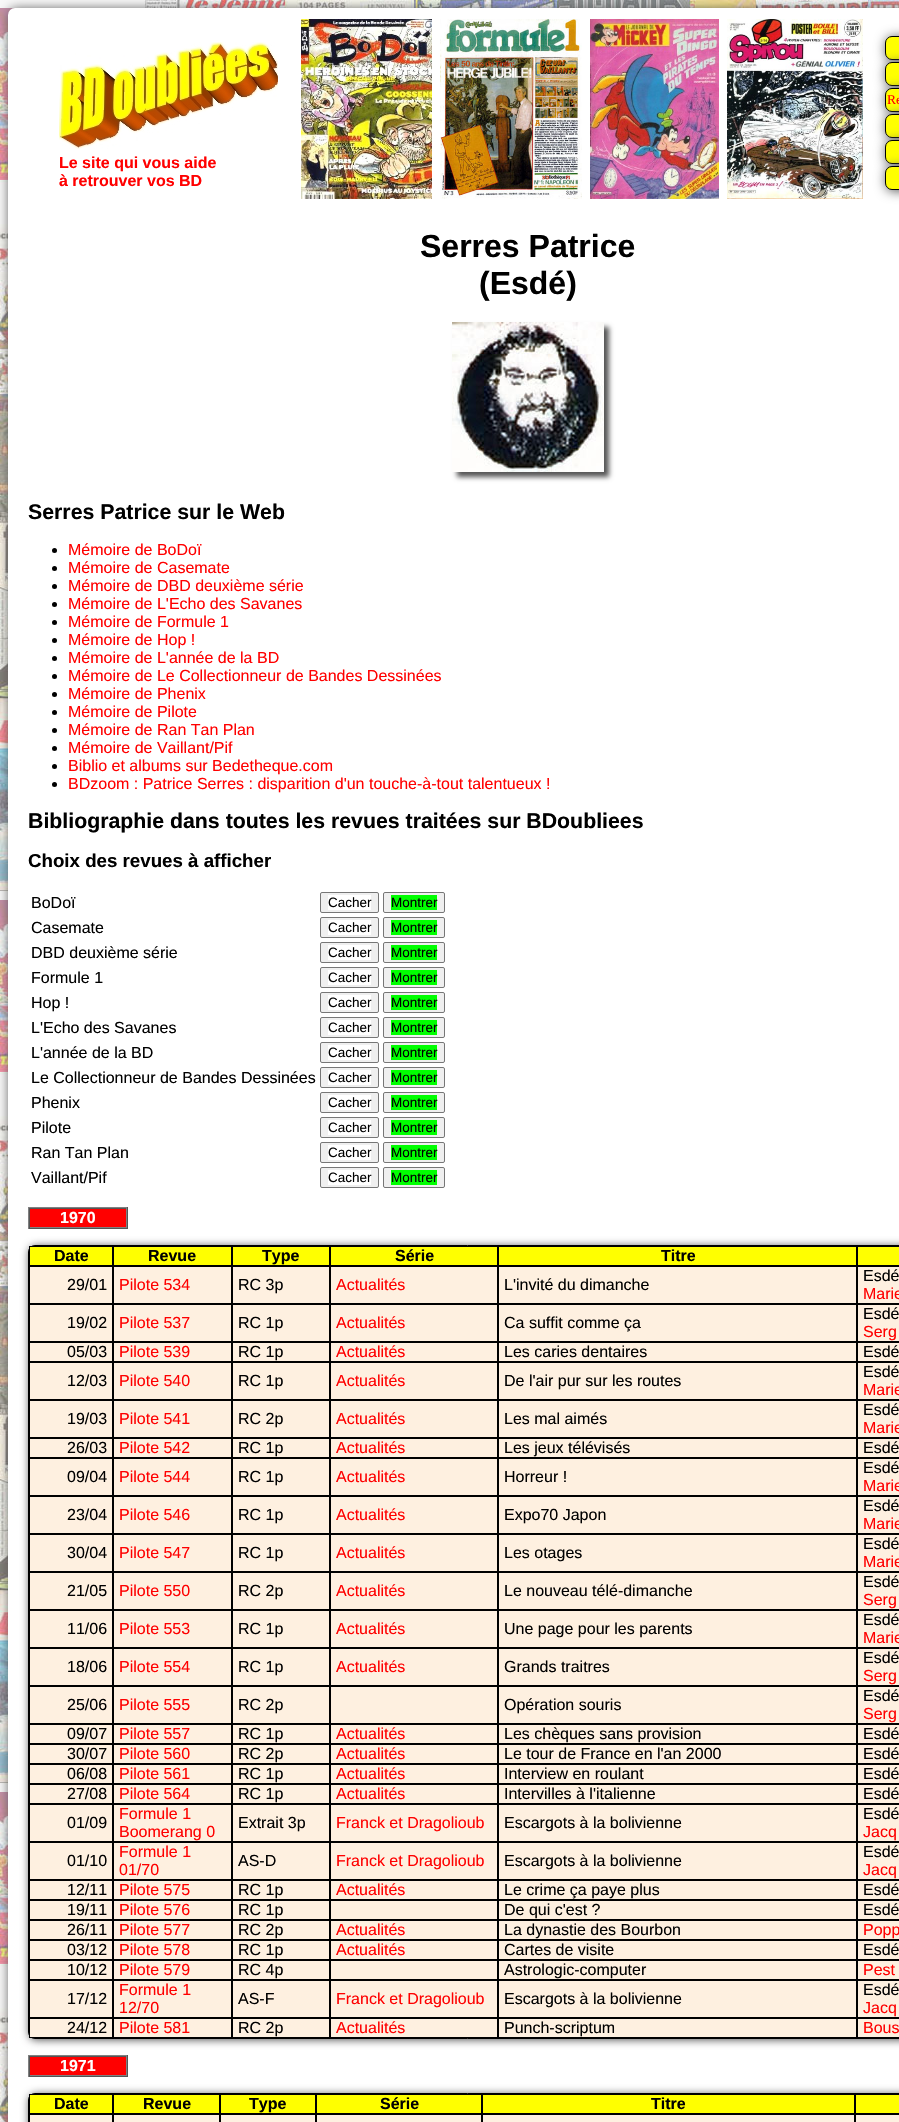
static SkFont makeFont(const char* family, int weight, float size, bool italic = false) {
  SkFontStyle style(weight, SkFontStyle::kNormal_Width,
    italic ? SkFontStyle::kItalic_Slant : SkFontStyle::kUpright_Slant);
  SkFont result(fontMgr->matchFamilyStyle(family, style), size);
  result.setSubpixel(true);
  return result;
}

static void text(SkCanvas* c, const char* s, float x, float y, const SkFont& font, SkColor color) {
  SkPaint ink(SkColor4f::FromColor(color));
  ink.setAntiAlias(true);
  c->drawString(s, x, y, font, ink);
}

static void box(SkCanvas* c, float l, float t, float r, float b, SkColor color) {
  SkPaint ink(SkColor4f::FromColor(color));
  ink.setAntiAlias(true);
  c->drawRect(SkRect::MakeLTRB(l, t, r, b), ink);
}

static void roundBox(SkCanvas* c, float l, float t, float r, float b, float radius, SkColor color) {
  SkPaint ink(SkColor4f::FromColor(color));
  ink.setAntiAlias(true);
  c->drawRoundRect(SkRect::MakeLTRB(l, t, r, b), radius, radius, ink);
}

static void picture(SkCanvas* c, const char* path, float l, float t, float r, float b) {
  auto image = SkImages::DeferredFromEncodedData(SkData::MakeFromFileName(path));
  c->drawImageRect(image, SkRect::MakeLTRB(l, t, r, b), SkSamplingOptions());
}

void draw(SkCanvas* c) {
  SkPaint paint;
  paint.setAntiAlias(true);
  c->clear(0xffffffff);
  picture(c, "img_01.png", 0, 0, 899, 2122);
  paint.setColor(0xff555555);
  paint.setMaskFilter(SkMaskFilter::MakeBlur(kNormal_SkBlurStyle, 6));
  c->drawRoundRect(SkRect::MakeLTRB(9, 9, 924, 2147), 7, 7, paint);
  paint.setMaskFilter(nullptr);
  roundBox(c, 8, 8, 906, 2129, 7, 0xffffffff);
  paint.setMaskFilter(SkMaskFilter::MakeBlur(kNormal_SkBlurStyle, 6));
  c->drawRoundRect(SkRect::MakeLTRB(886, 37, 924, 61), 7, 7, paint);
  paint.setMaskFilter(nullptr);
  paint.setColor(0xffffff00);
  c->drawRoundRect(SkRect::MakeLTRB(885.5f, 36.5f, 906.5f, 59.5f), 6.5f, 6.5f, paint);
  paint.setStyle(SkPaint::kStroke_Style);
  paint.setStrokeWidth(1);
  paint.setColor(0xff000000);
  c->drawRoundRect(SkRect::MakeLTRB(885.5f, 36.5f, 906.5f, 59.5f), 6.5f, 6.5f, paint);
  paint.setStyle(SkPaint::kFill_Style);
  paint.setColor(0xff555555);
  paint.setMaskFilter(SkMaskFilter::MakeBlur(kNormal_SkBlurStyle, 6));
  c->drawRoundRect(SkRect::MakeLTRB(886, 63, 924, 87), 7, 7, paint);
  paint.setMaskFilter(nullptr);
  paint.setColor(0xffffff00);
  c->drawRoundRect(SkRect::MakeLTRB(885.5f, 62.5f, 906.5f, 85.5f), 6.5f, 6.5f, paint);
  paint.setStyle(SkPaint::kStroke_Style);
  paint.setColor(0xff000000);
  c->drawRoundRect(SkRect::MakeLTRB(885.5f, 62.5f, 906.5f, 85.5f), 6.5f, 6.5f, paint);
  paint.setStyle(SkPaint::kFill_Style);
  paint.setColor(0xff555555);
  paint.setMaskFilter(SkMaskFilter::MakeBlur(kNormal_SkBlurStyle, 6));
  c->drawRoundRect(SkRect::MakeLTRB(886, 89, 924, 113), 7, 7, paint);
  paint.setMaskFilter(nullptr);
  paint.setColor(0xffffff00);
  c->drawRoundRect(SkRect::MakeLTRB(885.5f, 88.5f, 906.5f, 111.5f), 6.5f, 6.5f, paint);
  paint.setStyle(SkPaint::kStroke_Style);
  paint.setColor(0xff000000);
  c->drawRoundRect(SkRect::MakeLTRB(885.5f, 88.5f, 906.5f, 111.5f), 6.5f, 6.5f, paint);
  paint.setStyle(SkPaint::kFill_Style);
  paint.setColor(0xff555555);
  paint.setMaskFilter(SkMaskFilter::MakeBlur(kNormal_SkBlurStyle, 6));
  c->drawRoundRect(SkRect::MakeLTRB(886, 115, 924, 139), 7, 7, paint);
  paint.setMaskFilter(nullptr);
  SkFont face1 = makeFont("Liberation Serif", 400, 13.5f);
  text(c, "Re", 887, 104, face1, 0xffff0000);
  paint.setColor(0xffffff00);
  c->drawRoundRect(SkRect::MakeLTRB(885.5f, 114.5f, 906.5f, 137.5f), 6.5f, 6.5f, paint);
  paint.setStyle(SkPaint::kStroke_Style);
  paint.setColor(0xff000000);
  c->drawRoundRect(SkRect::MakeLTRB(885.5f, 114.5f, 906.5f, 137.5f), 6.5f, 6.5f, paint);
  paint.setStyle(SkPaint::kFill_Style);
  paint.setColor(0xff555555);
  paint.setMaskFilter(SkMaskFilter::MakeBlur(kNormal_SkBlurStyle, 6));
  c->drawRoundRect(SkRect::MakeLTRB(886, 141, 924, 165), 7, 7, paint);
  paint.setMaskFilter(nullptr);
  paint.setColor(0xffffff00);
  c->drawRoundRect(SkRect::MakeLTRB(885.5f, 140.5f, 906.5f, 163.5f), 6.5f, 6.5f, paint);
  paint.setStyle(SkPaint::kStroke_Style);
  paint.setColor(0xff000000);
  c->drawRoundRect(SkRect::MakeLTRB(885.5f, 140.5f, 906.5f, 163.5f), 6.5f, 6.5f, paint);
  picture(c, "img_02.png", 59, 42, 278, 149);
  SkFont face2 = makeFont("Liberation Sans", 700, 16);
  text(c, "Le site qui vous aide", 59, 168, face2, 0xffff0000);
  text(c, "à retrouver vos BD", 59, 186, face2, 0xffff0000);
  picture(c, "img_03.png", 301, 19, 863, 199);
  paint.setStyle(SkPaint::kFill_Style);
  paint.setColor(0xff555555);
  paint.setMaskFilter(SkMaskFilter::MakeBlur(kNormal_SkBlurStyle, 6));
  c->drawRoundRect(SkRect::MakeLTRB(886, 167, 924, 191), 7, 7, paint);
  paint.setMaskFilter(nullptr);
  paint.setColor(0xffffff00);
  c->drawRoundRect(SkRect::MakeLTRB(885.5f, 166.5f, 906.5f, 189.5f), 6.5f, 6.5f, paint);
  paint.setStyle(SkPaint::kStroke_Style);
  paint.setColor(0xff000000);
  c->drawRoundRect(SkRect::MakeLTRB(885.5f, 166.5f, 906.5f, 189.5f), 6.5f, 6.5f, paint);
  SkFont face3 = makeFont("Liberation Sans", 700, 32);
  text(c, "Serres Patrice", 420, 257, face3, 0xff000000);
  text(c, "(Esdé)", 479, 294, face3, 0xff000000);
  paint.setStyle(SkPaint::kFill_Style);
  paint.setColor(0xff555555);
  paint.setMaskFilter(SkMaskFilter::MakeBlur(kNormal_SkBlurStyle, 2.5f));
  c->drawRect(SkRect::MakeLTRB(457, 327, 609, 477), paint);
  paint.setMaskFilter(nullptr);
  picture(c, "img_04.png", 452, 322, 604, 472);
  SkFont face4 = makeFont("Liberation Sans", 700, 21.3f);
  text(c, "Serres Patrice sur le Web", 28, 519, face4, 0xff000000);
  paint.setColor(0xff000000);
  c->drawCircle(54.5f, 550.5f, 2.5f, paint);
  SkFont face5 = makeFont("Liberation Sans", 400, 16);
  text(c, "Mémoire de BoDoï", 68, 555, face5, 0xffff0000);
  c->drawCircle(54.5f, 568.5f, 2.5f, paint);
  text(c, "Mémoire de Casemate", 68, 573, face5, 0xffff0000);
  c->drawCircle(54.5f, 586.5f, 2.5f, paint);
  text(c, "Mémoire de DBD deuxième série", 68, 591, face5, 0xffff0000);
  c->drawCircle(54.5f, 604.5f, 2.5f, paint);
  text(c, "Mémoire de L'Echo des Savanes", 68, 609, face5, 0xffff0000);
  c->drawCircle(54.5f, 622.5f, 2.5f, paint);
  text(c, "Mémoire de Formule 1", 68, 627, face5, 0xffff0000);
  c->drawCircle(54.5f, 640.5f, 2.5f, paint);
  text(c, "Mémoire de Hop !", 68, 645, face5, 0xffff0000);
  c->drawCircle(54.5f, 658.5f, 2.5f, paint);
  text(c, "Mémoire de L'année de la BD", 68, 663, face5, 0xffff0000);
  c->drawCircle(54.5f, 676.5f, 2.5f, paint);
  text(c, "Mémoire de Le Collectionneur de Bandes Dessinées", 68, 681, face5, 0xffff0000);
  c->drawCircle(54.5f, 694.5f, 2.5f, paint);
  text(c, "Mémoire de Phenix", 68, 699, face5, 0xffff0000);
  c->drawCircle(54.5f, 712.5f, 2.5f, paint);
  text(c, "Mémoire de Pilote", 68, 717, face5, 0xffff0000);
  c->drawCircle(54.5f, 730.5f, 2.5f, paint);
  text(c, "Mémoire de Ran Tan Plan", 68, 735, face5, 0xffff0000);
  c->drawCircle(54.5f, 748.5f, 2.5f, paint);
  text(c, "Mémoire de Vaillant/Pif", 68, 753, face5, 0xffff0000);
  c->drawCircle(54.5f, 766.5f, 2.5f, paint);
  text(c, "Biblio et albums sur Bedetheque.com", 68, 771, face5, 0xffff0000);
  c->drawCircle(54.5f, 784.5f, 2.5f, paint);
  text(c, "BDzoom : Patrice Serres : disparition d'un touche-à-tout talentueux !", 68, 789, face5, 0xffff0000);
  text(c, "Bibliographie dans toutes les revues traitées sur BDoubliees", 28, 828, face4, 0xff000000);
  SkFont face6 = makeFont("Liberation Sans", 700, 18.7f);
  text(c, "Choix des revues à afficher", 28, 867, face6, 0xff000000);
  text(c, "BoDoï", 31, 908, face5, 0xff000000);
  paint.setColor(0xffefefef);
  c->drawRoundRect(SkRect::MakeLTRB(320.5f, 892.5f, 378.5f, 912.5f), 1.5f, 1.5f, paint);
  paint.setStyle(SkPaint::kStroke_Style);
  paint.setColor(0xff767676);
  c->drawRoundRect(SkRect::MakeLTRB(320.5f, 892.5f, 378.5f, 912.5f), 1.5f, 1.5f, paint);
  box(c, 328, 895, 371, 910, 0xffffffff);
  SkFont face7 = makeFont("Liberation Sans", 400, 13.5f);
  text(c, "Cacher", 328, 907, face7, 0xff000000);
  paint.setStyle(SkPaint::kFill_Style);
  paint.setColor(0xffefefef);
  c->drawRoundRect(SkRect::MakeLTRB(383.5f, 892.5f, 444.5f, 912.5f), 1.5f, 1.5f, paint);
  paint.setStyle(SkPaint::kStroke_Style);
  paint.setColor(0xff767676);
  c->drawRoundRect(SkRect::MakeLTRB(383.5f, 892.5f, 444.5f, 912.5f), 1.5f, 1.5f, paint);
  box(c, 391, 895, 437, 910, 0xff00ff00);
  text(c, "Montrer", 391, 907, face7, 0xff000000);
  text(c, "Casemate", 31, 933, face5, 0xff000000);
  paint.setStyle(SkPaint::kFill_Style);
  paint.setColor(0xffefefef);
  c->drawRoundRect(SkRect::MakeLTRB(320.5f, 917.5f, 378.5f, 937.5f), 1.5f, 1.5f, paint);
  paint.setStyle(SkPaint::kStroke_Style);
  paint.setColor(0xff767676);
  c->drawRoundRect(SkRect::MakeLTRB(320.5f, 917.5f, 378.5f, 937.5f), 1.5f, 1.5f, paint);
  box(c, 328, 920, 371, 935, 0xffffffff);
  text(c, "Cacher", 328, 932, face7, 0xff000000);
  paint.setStyle(SkPaint::kFill_Style);
  paint.setColor(0xffefefef);
  c->drawRoundRect(SkRect::MakeLTRB(383.5f, 917.5f, 444.5f, 937.5f), 1.5f, 1.5f, paint);
  paint.setStyle(SkPaint::kStroke_Style);
  paint.setColor(0xff767676);
  c->drawRoundRect(SkRect::MakeLTRB(383.5f, 917.5f, 444.5f, 937.5f), 1.5f, 1.5f, paint);
  box(c, 391, 920, 437, 935, 0xff00ff00);
  text(c, "Montrer", 391, 932, face7, 0xff000000);
  text(c, "DBD deuxième série", 31, 958, face5, 0xff000000);
  paint.setStyle(SkPaint::kFill_Style);
  paint.setColor(0xffefefef);
  c->drawRoundRect(SkRect::MakeLTRB(320.5f, 942.5f, 378.5f, 962.5f), 1.5f, 1.5f, paint);
  paint.setStyle(SkPaint::kStroke_Style);
  paint.setColor(0xff767676);
  c->drawRoundRect(SkRect::MakeLTRB(320.5f, 942.5f, 378.5f, 962.5f), 1.5f, 1.5f, paint);
  box(c, 328, 945, 371, 960, 0xffffffff);
  text(c, "Cacher", 328, 957, face7, 0xff000000);
  paint.setStyle(SkPaint::kFill_Style);
  paint.setColor(0xffefefef);
  c->drawRoundRect(SkRect::MakeLTRB(383.5f, 942.5f, 444.5f, 962.5f), 1.5f, 1.5f, paint);
  paint.setStyle(SkPaint::kStroke_Style);
  paint.setColor(0xff767676);
  c->drawRoundRect(SkRect::MakeLTRB(383.5f, 942.5f, 444.5f, 962.5f), 1.5f, 1.5f, paint);
  box(c, 391, 945, 437, 960, 0xff00ff00);
  text(c, "Montrer", 391, 957, face7, 0xff000000);
  text(c, "Formule 1", 31, 983, face5, 0xff000000);
  paint.setStyle(SkPaint::kFill_Style);
  paint.setColor(0xffefefef);
  c->drawRoundRect(SkRect::MakeLTRB(320.5f, 967.5f, 378.5f, 987.5f), 1.5f, 1.5f, paint);
  paint.setStyle(SkPaint::kStroke_Style);
  paint.setColor(0xff767676);
  c->drawRoundRect(SkRect::MakeLTRB(320.5f, 967.5f, 378.5f, 987.5f), 1.5f, 1.5f, paint);
  box(c, 328, 970, 371, 985, 0xffffffff);
  text(c, "Cacher", 328, 982, face7, 0xff000000);
  paint.setStyle(SkPaint::kFill_Style);
  paint.setColor(0xffefefef);
  c->drawRoundRect(SkRect::MakeLTRB(383.5f, 967.5f, 444.5f, 987.5f), 1.5f, 1.5f, paint);
  paint.setStyle(SkPaint::kStroke_Style);
  paint.setColor(0xff767676);
  c->drawRoundRect(SkRect::MakeLTRB(383.5f, 967.5f, 444.5f, 987.5f), 1.5f, 1.5f, paint);
  box(c, 391, 970, 437, 985, 0xff00ff00);
  text(c, "Montrer", 391, 982, face7, 0xff000000);
  text(c, "Hop !", 31, 1008, face5, 0xff000000);
  paint.setStyle(SkPaint::kFill_Style);
  paint.setColor(0xffefefef);
  c->drawRoundRect(SkRect::MakeLTRB(320.5f, 992.5f, 378.5f, 1012.5f), 1.5f, 1.5f, paint);
  paint.setStyle(SkPaint::kStroke_Style);
  paint.setColor(0xff767676);
  c->drawRoundRect(SkRect::MakeLTRB(320.5f, 992.5f, 378.5f, 1012.5f), 1.5f, 1.5f, paint);
  box(c, 328, 995, 371, 1010, 0xffffffff);
  text(c, "Cacher", 328, 1007, face7, 0xff000000);
  paint.setStyle(SkPaint::kFill_Style);
  paint.setColor(0xffefefef);
  c->drawRoundRect(SkRect::MakeLTRB(383.5f, 992.5f, 444.5f, 1012.5f), 1.5f, 1.5f, paint);
  paint.setStyle(SkPaint::kStroke_Style);
  paint.setColor(0xff767676);
  c->drawRoundRect(SkRect::MakeLTRB(383.5f, 992.5f, 444.5f, 1012.5f), 1.5f, 1.5f, paint);
  box(c, 391, 995, 437, 1010, 0xff00ff00);
  text(c, "Montrer", 391, 1007, face7, 0xff000000);
  text(c, "L'Echo des Savanes", 31, 1033, face5, 0xff000000);
  paint.setStyle(SkPaint::kFill_Style);
  paint.setColor(0xffefefef);
  c->drawRoundRect(SkRect::MakeLTRB(320.5f, 1017.5f, 378.5f, 1037.5f), 1.5f, 1.5f, paint);
  paint.setStyle(SkPaint::kStroke_Style);
  paint.setColor(0xff767676);
  c->drawRoundRect(SkRect::MakeLTRB(320.5f, 1017.5f, 378.5f, 1037.5f), 1.5f, 1.5f, paint);
  box(c, 328, 1020, 371, 1035, 0xffffffff);
  text(c, "Cacher", 328, 1032, face7, 0xff000000);
  paint.setStyle(SkPaint::kFill_Style);
  paint.setColor(0xffefefef);
  c->drawRoundRect(SkRect::MakeLTRB(383.5f, 1017.5f, 444.5f, 1037.5f), 1.5f, 1.5f, paint);
  paint.setStyle(SkPaint::kStroke_Style);
  paint.setColor(0xff767676);
  c->drawRoundRect(SkRect::MakeLTRB(383.5f, 1017.5f, 444.5f, 1037.5f), 1.5f, 1.5f, paint);
  box(c, 391, 1020, 437, 1035, 0xff00ff00);
  text(c, "Montrer", 391, 1032, face7, 0xff000000);
  text(c, "L'année de la BD", 31, 1058, face5, 0xff000000);
  paint.setStyle(SkPaint::kFill_Style);
  paint.setColor(0xffefefef);
  c->drawRoundRect(SkRect::MakeLTRB(320.5f, 1042.5f, 378.5f, 1062.5f), 1.5f, 1.5f, paint);
  paint.setStyle(SkPaint::kStroke_Style);
  paint.setColor(0xff767676);
  c->drawRoundRect(SkRect::MakeLTRB(320.5f, 1042.5f, 378.5f, 1062.5f), 1.5f, 1.5f, paint);
  box(c, 328, 1045, 371, 1060, 0xffffffff);
  text(c, "Cacher", 328, 1057, face7, 0xff000000);
  paint.setStyle(SkPaint::kFill_Style);
  paint.setColor(0xffefefef);
  c->drawRoundRect(SkRect::MakeLTRB(383.5f, 1042.5f, 444.5f, 1062.5f), 1.5f, 1.5f, paint);
  paint.setStyle(SkPaint::kStroke_Style);
  paint.setColor(0xff767676);
  c->drawRoundRect(SkRect::MakeLTRB(383.5f, 1042.5f, 444.5f, 1062.5f), 1.5f, 1.5f, paint);
  box(c, 391, 1045, 437, 1060, 0xff00ff00);
  text(c, "Montrer", 391, 1057, face7, 0xff000000);
  text(c, "Le Collectionneur de Bandes Dessinées", 31, 1083, face5, 0xff000000);
  paint.setStyle(SkPaint::kFill_Style);
  paint.setColor(0xffefefef);
  c->drawRoundRect(SkRect::MakeLTRB(320.5f, 1067.5f, 378.5f, 1087.5f), 1.5f, 1.5f, paint);
  paint.setStyle(SkPaint::kStroke_Style);
  paint.setColor(0xff767676);
  c->drawRoundRect(SkRect::MakeLTRB(320.5f, 1067.5f, 378.5f, 1087.5f), 1.5f, 1.5f, paint);
  box(c, 328, 1070, 371, 1085, 0xffffffff);
  text(c, "Cacher", 328, 1082, face7, 0xff000000);
  paint.setStyle(SkPaint::kFill_Style);
  paint.setColor(0xffefefef);
  c->drawRoundRect(SkRect::MakeLTRB(383.5f, 1067.5f, 444.5f, 1087.5f), 1.5f, 1.5f, paint);
  paint.setStyle(SkPaint::kStroke_Style);
  paint.setColor(0xff767676);
  c->drawRoundRect(SkRect::MakeLTRB(383.5f, 1067.5f, 444.5f, 1087.5f), 1.5f, 1.5f, paint);
  box(c, 391, 1070, 437, 1085, 0xff00ff00);
  text(c, "Montrer", 391, 1082, face7, 0xff000000);
  text(c, "Phenix", 31, 1108, face5, 0xff000000);
  paint.setStyle(SkPaint::kFill_Style);
  paint.setColor(0xffefefef);
  c->drawRoundRect(SkRect::MakeLTRB(320.5f, 1092.5f, 378.5f, 1112.5f), 1.5f, 1.5f, paint);
  paint.setStyle(SkPaint::kStroke_Style);
  paint.setColor(0xff767676);
  c->drawRoundRect(SkRect::MakeLTRB(320.5f, 1092.5f, 378.5f, 1112.5f), 1.5f, 1.5f, paint);
  box(c, 328, 1095, 371, 1110, 0xffffffff);
  text(c, "Cacher", 328, 1107, face7, 0xff000000);
  paint.setStyle(SkPaint::kFill_Style);
  paint.setColor(0xffefefef);
  c->drawRoundRect(SkRect::MakeLTRB(383.5f, 1092.5f, 444.5f, 1112.5f), 1.5f, 1.5f, paint);
  paint.setStyle(SkPaint::kStroke_Style);
  paint.setColor(0xff767676);
  c->drawRoundRect(SkRect::MakeLTRB(383.5f, 1092.5f, 444.5f, 1112.5f), 1.5f, 1.5f, paint);
  box(c, 391, 1095, 437, 1110, 0xff00ff00);
  text(c, "Montrer", 391, 1107, face7, 0xff000000);
  text(c, "Pilote", 31, 1133, face5, 0xff000000);
  paint.setStyle(SkPaint::kFill_Style);
  paint.setColor(0xffefefef);
  c->drawRoundRect(SkRect::MakeLTRB(320.5f, 1117.5f, 378.5f, 1137.5f), 1.5f, 1.5f, paint);
  paint.setStyle(SkPaint::kStroke_Style);
  paint.setColor(0xff767676);
  c->drawRoundRect(SkRect::MakeLTRB(320.5f, 1117.5f, 378.5f, 1137.5f), 1.5f, 1.5f, paint);
  box(c, 328, 1120, 371, 1135, 0xffffffff);
  text(c, "Cacher", 328, 1132, face7, 0xff000000);
  paint.setStyle(SkPaint::kFill_Style);
  paint.setColor(0xffefefef);
  c->drawRoundRect(SkRect::MakeLTRB(383.5f, 1117.5f, 444.5f, 1137.5f), 1.5f, 1.5f, paint);
  paint.setStyle(SkPaint::kStroke_Style);
  paint.setColor(0xff767676);
  c->drawRoundRect(SkRect::MakeLTRB(383.5f, 1117.5f, 444.5f, 1137.5f), 1.5f, 1.5f, paint);
  box(c, 391, 1120, 437, 1135, 0xff00ff00);
  text(c, "Montrer", 391, 1132, face7, 0xff000000);
  text(c, "Ran Tan Plan", 31, 1158, face5, 0xff000000);
  paint.setStyle(SkPaint::kFill_Style);
  paint.setColor(0xffefefef);
  c->drawRoundRect(SkRect::MakeLTRB(320.5f, 1142.5f, 378.5f, 1162.5f), 1.5f, 1.5f, paint);
  paint.setStyle(SkPaint::kStroke_Style);
  paint.setColor(0xff767676);
  c->drawRoundRect(SkRect::MakeLTRB(320.5f, 1142.5f, 378.5f, 1162.5f), 1.5f, 1.5f, paint);
  box(c, 328, 1145, 371, 1160, 0xffffffff);
  text(c, "Cacher", 328, 1157, face7, 0xff000000);
  paint.setStyle(SkPaint::kFill_Style);
  paint.setColor(0xffefefef);
  c->drawRoundRect(SkRect::MakeLTRB(383.5f, 1142.5f, 444.5f, 1162.5f), 1.5f, 1.5f, paint);
  paint.setStyle(SkPaint::kStroke_Style);
  paint.setColor(0xff767676);
  c->drawRoundRect(SkRect::MakeLTRB(383.5f, 1142.5f, 444.5f, 1162.5f), 1.5f, 1.5f, paint);
  box(c, 391, 1145, 437, 1160, 0xff00ff00);
  text(c, "Montrer", 391, 1157, face7, 0xff000000);
  text(c, "Vaillant/Pif", 31, 1183, face5, 0xff000000);
  paint.setStyle(SkPaint::kFill_Style);
  paint.setColor(0xffefefef);
  c->drawRoundRect(SkRect::MakeLTRB(320.5f, 1167.5f, 378.5f, 1187.5f), 1.5f, 1.5f, paint);
  paint.setStyle(SkPaint::kStroke_Style);
  paint.setColor(0xff767676);
  c->drawRoundRect(SkRect::MakeLTRB(320.5f, 1167.5f, 378.5f, 1187.5f), 1.5f, 1.5f, paint);
  box(c, 328, 1170, 371, 1185, 0xffffffff);
  text(c, "Cacher", 328, 1182, face7, 0xff000000);
  paint.setStyle(SkPaint::kFill_Style);
  paint.setColor(0xffefefef);
  c->drawRoundRect(SkRect::MakeLTRB(383.5f, 1167.5f, 444.5f, 1187.5f), 1.5f, 1.5f, paint);
  paint.setStyle(SkPaint::kStroke_Style);
  paint.setColor(0xff767676);
  c->drawRoundRect(SkRect::MakeLTRB(383.5f, 1167.5f, 444.5f, 1187.5f), 1.5f, 1.5f, paint);
  box(c, 391, 1170, 437, 1185, 0xff00ff00);
  text(c, "Montrer", 391, 1182, face7, 0xff000000);
  box(c, 30, 1209, 126, 1227, 0xffff0000);
  box(c, 28, 1207, 128, 1208, 0xff808080);
  box(c, 127, 1207, 128, 1229, 0xff555555);
  box(c, 28, 1228, 128, 1229, 0xff555555);
  box(c, 28, 1207, 29, 1229, 0xff808080);
  box(c, 29, 1208, 127, 1209, 0xff555555);
  box(c, 126, 1208, 127, 1228, 0xff808080);
  box(c, 29, 1227, 127, 1228, 0xff808080);
  box(c, 29, 1208, 30, 1228, 0xff555555);
  text(c, "1970", 60, 1223, face2, 0xffffffff);
  paint.setStyle(SkPaint::kFill_Style);
  paint.setColor(0xff555555);
  paint.setMaskFilter(SkMaskFilter::MakeBlur(kNormal_SkBlurStyle, 4));
  c->drawRoundRect(SkRect::MakeLTRB(29, 1246, 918, 2040), 7, 7, paint);
  paint.setMaskFilter(nullptr);
  paint.setStyle(SkPaint::kStroke_Style);
  paint.setColor(0xff000000);
  c->drawRoundRect(SkRect::MakeLTRB(28.5f, 1245.5f, 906.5f, 2038.5f), 6.5f, 6.5f, paint);
  paint.setStyle(SkPaint::kFill_Style);
  paint.setColor(0xffffff00);
  c->drawRect(SkRect::MakeLTRB(29.5f, 1246.5f, 112.5f, 1265.5f), paint);
  paint.setStyle(SkPaint::kStroke_Style);
  paint.setColor(0xff000000);
  c->drawRect(SkRect::MakeLTRB(29.5f, 1246.5f, 112.5f, 1265.5f), paint);
  text(c, "Date", 54, 1261, face2, 0xff000000);
  paint.setStyle(SkPaint::kFill_Style);
  paint.setColor(0xffffff00);
  c->drawRect(SkRect::MakeLTRB(113.5f, 1246.5f, 231.5f, 1265.5f), paint);
  paint.setStyle(SkPaint::kStroke_Style);
  paint.setColor(0xff000000);
  c->drawRect(SkRect::MakeLTRB(113.5f, 1246.5f, 231.5f, 1265.5f), paint);
  text(c, "Revue", 148, 1261, face2, 0xff000000);
  paint.setStyle(SkPaint::kFill_Style);
  paint.setColor(0xffffff00);
  c->drawRect(SkRect::MakeLTRB(232.5f, 1246.5f, 329.5f, 1265.5f), paint);
  paint.setStyle(SkPaint::kStroke_Style);
  paint.setColor(0xff000000);
  c->drawRect(SkRect::MakeLTRB(232.5f, 1246.5f, 329.5f, 1265.5f), paint);
  text(c, "Type", 262, 1261, face2, 0xff000000);
  paint.setStyle(SkPaint::kFill_Style);
  paint.setColor(0xffffff00);
  c->drawRect(SkRect::MakeLTRB(330.5f, 1246.5f, 497.5f, 1265.5f), paint);
  paint.setStyle(SkPaint::kStroke_Style);
  paint.setColor(0xff000000);
  c->drawRect(SkRect::MakeLTRB(330.5f, 1246.5f, 497.5f, 1265.5f), paint);
  text(c, "Série", 395, 1261, face2, 0xff000000);
  paint.setStyle(SkPaint::kFill_Style);
  paint.setColor(0xffffff00);
  c->drawRect(SkRect::MakeLTRB(498.5f, 1246.5f, 856.5f, 1265.5f), paint);
  paint.setStyle(SkPaint::kStroke_Style);
  paint.setColor(0xff000000);
  c->drawRect(SkRect::MakeLTRB(498.5f, 1246.5f, 856.5f, 1265.5f), paint);
  text(c, "Titre", 661, 1261, face2, 0xff000000);
  paint.setStyle(SkPaint::kFill_Style);
  paint.setColor(0xffffff00);
  c->drawRect(SkRect::MakeLTRB(857.5f, 1246.5f, 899.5f, 1265.5f), paint);
  paint.setStyle(SkPaint::kStroke_Style);
  paint.setColor(0xff000000);
  c->drawRect(SkRect::MakeLTRB(857.5f, 1246.5f, 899.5f, 1265.5f), paint);
  box(c, 30, 1267, 899, 1303, 0xfffef0e0);
  c->drawRect(SkRect::MakeLTRB(29.5f, 1266.5f, 112.5f, 1303.5f), paint);
  text(c, "29/01", 67, 1290, face5, 0xff000000);
  c->drawRect(SkRect::MakeLTRB(113.5f, 1266.5f, 231.5f, 1303.5f), paint);
  text(c, "Pilote 534", 119, 1290, face5, 0xffff0000);
  c->drawRect(SkRect::MakeLTRB(232.5f, 1266.5f, 329.5f, 1303.5f), paint);
  text(c, "RC 3p", 238, 1290, face5, 0xff000000);
  c->drawRect(SkRect::MakeLTRB(330.5f, 1266.5f, 497.5f, 1303.5f), paint);
  text(c, "Actualités", 336, 1290, face5, 0xffff0000);
  c->drawRect(SkRect::MakeLTRB(498.5f, 1266.5f, 856.5f, 1303.5f), paint);
  text(c, "L'invité du dimanche", 504, 1290, face5, 0xff000000);
  c->drawRect(SkRect::MakeLTRB(857.5f, 1266.5f, 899.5f, 1303.5f), paint);
  text(c, "Esdé", 863, 1281, face5, 0xff000000);
  text(c, "Marie", 863, 1299, face5, 0xffff0000);
  box(c, 30, 1305, 899, 1341, 0xfffef0e0);
  c->drawRect(SkRect::MakeLTRB(29.5f, 1304.5f, 112.5f, 1341.5f), paint);
  text(c, "19/02", 67, 1328, face5, 0xff000000);
  c->drawRect(SkRect::MakeLTRB(113.5f, 1304.5f, 231.5f, 1341.5f), paint);
  text(c, "Pilote 537", 119, 1328, face5, 0xffff0000);
  c->drawRect(SkRect::MakeLTRB(232.5f, 1304.5f, 329.5f, 1341.5f), paint);
  text(c, "RC 1p", 238, 1328, face5, 0xff000000);
  c->drawRect(SkRect::MakeLTRB(330.5f, 1304.5f, 497.5f, 1341.5f), paint);
  text(c, "Actualités", 336, 1328, face5, 0xffff0000);
  c->drawRect(SkRect::MakeLTRB(498.5f, 1304.5f, 856.5f, 1341.5f), paint);
  text(c, "Ca suffit comme ça", 504, 1328, face5, 0xff000000);
  c->drawRect(SkRect::MakeLTRB(857.5f, 1304.5f, 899.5f, 1341.5f), paint);
  text(c, "Esdé", 863, 1319, face5, 0xff000000);
  text(c, "Serg", 863, 1337, face5, 0xffff0000);
  box(c, 30, 1343, 899, 1361, 0xfffef0e0);
  c->drawRect(SkRect::MakeLTRB(29.5f, 1342.5f, 112.5f, 1361.5f), paint);
  text(c, "05/03", 67, 1357, face5, 0xff000000);
  c->drawRect(SkRect::MakeLTRB(113.5f, 1342.5f, 231.5f, 1361.5f), paint);
  text(c, "Pilote 539", 119, 1357, face5, 0xffff0000);
  c->drawRect(SkRect::MakeLTRB(232.5f, 1342.5f, 329.5f, 1361.5f), paint);
  text(c, "RC 1p", 238, 1357, face5, 0xff000000);
  c->drawRect(SkRect::MakeLTRB(330.5f, 1342.5f, 497.5f, 1361.5f), paint);
  text(c, "Actualités", 336, 1357, face5, 0xffff0000);
  c->drawRect(SkRect::MakeLTRB(498.5f, 1342.5f, 856.5f, 1361.5f), paint);
  text(c, "Les caries dentaires", 504, 1357, face5, 0xff000000);
  c->drawRect(SkRect::MakeLTRB(857.5f, 1342.5f, 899.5f, 1361.5f), paint);
  text(c, "Esdé", 863, 1357, face5, 0xff000000);
  box(c, 30, 1363, 899, 1399, 0xfffef0e0);
  c->drawRect(SkRect::MakeLTRB(29.5f, 1362.5f, 112.5f, 1399.5f), paint);
  text(c, "12/03", 67, 1386, face5, 0xff000000);
  c->drawRect(SkRect::MakeLTRB(113.5f, 1362.5f, 231.5f, 1399.5f), paint);
  text(c, "Pilote 540", 119, 1386, face5, 0xffff0000);
  c->drawRect(SkRect::MakeLTRB(232.5f, 1362.5f, 329.5f, 1399.5f), paint);
  text(c, "RC 1p", 238, 1386, face5, 0xff000000);
  c->drawRect(SkRect::MakeLTRB(330.5f, 1362.5f, 497.5f, 1399.5f), paint);
  text(c, "Actualités", 336, 1386, face5, 0xffff0000);
  c->drawRect(SkRect::MakeLTRB(498.5f, 1362.5f, 856.5f, 1399.5f), paint);
  text(c, "De l'air pur sur les routes", 504, 1386, face5, 0xff000000);
  c->drawRect(SkRect::MakeLTRB(857.5f, 1362.5f, 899.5f, 1399.5f), paint);
  text(c, "Esdé", 863, 1377, face5, 0xff000000);
  text(c, "Marie", 863, 1395, face5, 0xffff0000);
  box(c, 30, 1401, 899, 1437, 0xfffef0e0);
  c->drawRect(SkRect::MakeLTRB(29.5f, 1400.5f, 112.5f, 1437.5f), paint);
  text(c, "19/03", 67, 1424, face5, 0xff000000);
  c->drawRect(SkRect::MakeLTRB(113.5f, 1400.5f, 231.5f, 1437.5f), paint);
  text(c, "Pilote 541", 119, 1424, face5, 0xffff0000);
  c->drawRect(SkRect::MakeLTRB(232.5f, 1400.5f, 329.5f, 1437.5f), paint);
  text(c, "RC 2p", 238, 1424, face5, 0xff000000);
  c->drawRect(SkRect::MakeLTRB(330.5f, 1400.5f, 497.5f, 1437.5f), paint);
  text(c, "Actualités", 336, 1424, face5, 0xffff0000);
  c->drawRect(SkRect::MakeLTRB(498.5f, 1400.5f, 856.5f, 1437.5f), paint);
  text(c, "Les mal aimés", 504, 1424, face5, 0xff000000);
  c->drawRect(SkRect::MakeLTRB(857.5f, 1400.5f, 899.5f, 1437.5f), paint);
  text(c, "Esdé", 863, 1415, face5, 0xff000000);
  text(c, "Marie", 863, 1433, face5, 0xffff0000);
  box(c, 30, 1439, 899, 1457, 0xfffef0e0);
  c->drawRect(SkRect::MakeLTRB(29.5f, 1438.5f, 112.5f, 1457.5f), paint);
  text(c, "26/03", 67, 1453, face5, 0xff000000);
  c->drawRect(SkRect::MakeLTRB(113.5f, 1438.5f, 231.5f, 1457.5f), paint);
  text(c, "Pilote 542", 119, 1453, face5, 0xffff0000);
  c->drawRect(SkRect::MakeLTRB(232.5f, 1438.5f, 329.5f, 1457.5f), paint);
  text(c, "RC 1p", 238, 1453, face5, 0xff000000);
  c->drawRect(SkRect::MakeLTRB(330.5f, 1438.5f, 497.5f, 1457.5f), paint);
  text(c, "Actualités", 336, 1453, face5, 0xffff0000);
  c->drawRect(SkRect::MakeLTRB(498.5f, 1438.5f, 856.5f, 1457.5f), paint);
  text(c, "Les jeux télévisés", 504, 1453, face5, 0xff000000);
  c->drawRect(SkRect::MakeLTRB(857.5f, 1438.5f, 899.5f, 1457.5f), paint);
  text(c, "Esdé", 863, 1453, face5, 0xff000000);
  box(c, 30, 1459, 899, 1495, 0xfffef0e0);
  c->drawRect(SkRect::MakeLTRB(29.5f, 1458.5f, 112.5f, 1495.5f), paint);
  text(c, "09/04", 67, 1482, face5, 0xff000000);
  c->drawRect(SkRect::MakeLTRB(113.5f, 1458.5f, 231.5f, 1495.5f), paint);
  text(c, "Pilote 544", 119, 1482, face5, 0xffff0000);
  c->drawRect(SkRect::MakeLTRB(232.5f, 1458.5f, 329.5f, 1495.5f), paint);
  text(c, "RC 1p", 238, 1482, face5, 0xff000000);
  c->drawRect(SkRect::MakeLTRB(330.5f, 1458.5f, 497.5f, 1495.5f), paint);
  text(c, "Actualités", 336, 1482, face5, 0xffff0000);
  c->drawRect(SkRect::MakeLTRB(498.5f, 1458.5f, 856.5f, 1495.5f), paint);
  text(c, "Horreur !", 504, 1482, face5, 0xff000000);
  c->drawRect(SkRect::MakeLTRB(857.5f, 1458.5f, 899.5f, 1495.5f), paint);
  text(c, "Esdé", 863, 1473, face5, 0xff000000);
  text(c, "Marie", 863, 1491, face5, 0xffff0000);
  box(c, 30, 1497, 899, 1533, 0xfffef0e0);
  c->drawRect(SkRect::MakeLTRB(29.5f, 1496.5f, 112.5f, 1533.5f), paint);
  text(c, "23/04", 67, 1520, face5, 0xff000000);
  c->drawRect(SkRect::MakeLTRB(113.5f, 1496.5f, 231.5f, 1533.5f), paint);
  text(c, "Pilote 546", 119, 1520, face5, 0xffff0000);
  c->drawRect(SkRect::MakeLTRB(232.5f, 1496.5f, 329.5f, 1533.5f), paint);
  text(c, "RC 1p", 238, 1520, face5, 0xff000000);
  c->drawRect(SkRect::MakeLTRB(330.5f, 1496.5f, 497.5f, 1533.5f), paint);
  text(c, "Actualités", 336, 1520, face5, 0xffff0000);
  c->drawRect(SkRect::MakeLTRB(498.5f, 1496.5f, 856.5f, 1533.5f), paint);
  text(c, "Expo70 Japon", 504, 1520, face5, 0xff000000);
  c->drawRect(SkRect::MakeLTRB(857.5f, 1496.5f, 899.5f, 1533.5f), paint);
  text(c, "Esdé", 863, 1511, face5, 0xff000000);
  text(c, "Marie", 863, 1529, face5, 0xffff0000);
  box(c, 30, 1535, 899, 1571, 0xfffef0e0);
  c->drawRect(SkRect::MakeLTRB(29.5f, 1534.5f, 112.5f, 1571.5f), paint);
  text(c, "30/04", 67, 1558, face5, 0xff000000);
  c->drawRect(SkRect::MakeLTRB(113.5f, 1534.5f, 231.5f, 1571.5f), paint);
  text(c, "Pilote 547", 119, 1558, face5, 0xffff0000);
  c->drawRect(SkRect::MakeLTRB(232.5f, 1534.5f, 329.5f, 1571.5f), paint);
  text(c, "RC 1p", 238, 1558, face5, 0xff000000);
  c->drawRect(SkRect::MakeLTRB(330.5f, 1534.5f, 497.5f, 1571.5f), paint);
  text(c, "Actualités", 336, 1558, face5, 0xffff0000);
  c->drawRect(SkRect::MakeLTRB(498.5f, 1534.5f, 856.5f, 1571.5f), paint);
  text(c, "Les otages", 504, 1558, face5, 0xff000000);
  c->drawRect(SkRect::MakeLTRB(857.5f, 1534.5f, 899.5f, 1571.5f), paint);
  text(c, "Esdé", 863, 1549, face5, 0xff000000);
  text(c, "Marie", 863, 1567, face5, 0xffff0000);
  box(c, 30, 1573, 899, 1609, 0xfffef0e0);
  c->drawRect(SkRect::MakeLTRB(29.5f, 1572.5f, 112.5f, 1609.5f), paint);
  text(c, "21/05", 67, 1596, face5, 0xff000000);
  c->drawRect(SkRect::MakeLTRB(113.5f, 1572.5f, 231.5f, 1609.5f), paint);
  text(c, "Pilote 550", 119, 1596, face5, 0xffff0000);
  c->drawRect(SkRect::MakeLTRB(232.5f, 1572.5f, 329.5f, 1609.5f), paint);
  text(c, "RC 2p", 238, 1596, face5, 0xff000000);
  c->drawRect(SkRect::MakeLTRB(330.5f, 1572.5f, 497.5f, 1609.5f), paint);
  text(c, "Actualités", 336, 1596, face5, 0xffff0000);
  c->drawRect(SkRect::MakeLTRB(498.5f, 1572.5f, 856.5f, 1609.5f), paint);
  text(c, "Le nouveau télé-dimanche", 504, 1596, face5, 0xff000000);
  c->drawRect(SkRect::MakeLTRB(857.5f, 1572.5f, 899.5f, 1609.5f), paint);
  text(c, "Esdé", 863, 1587, face5, 0xff000000);
  text(c, "Serg", 863, 1605, face5, 0xffff0000);
  box(c, 30, 1611, 899, 1647, 0xfffef0e0);
  c->drawRect(SkRect::MakeLTRB(29.5f, 1610.5f, 112.5f, 1647.5f), paint);
  text(c, "11/06", 67, 1634, face5, 0xff000000);
  c->drawRect(SkRect::MakeLTRB(113.5f, 1610.5f, 231.5f, 1647.5f), paint);
  text(c, "Pilote 553", 119, 1634, face5, 0xffff0000);
  c->drawRect(SkRect::MakeLTRB(232.5f, 1610.5f, 329.5f, 1647.5f), paint);
  text(c, "RC 1p", 238, 1634, face5, 0xff000000);
  c->drawRect(SkRect::MakeLTRB(330.5f, 1610.5f, 497.5f, 1647.5f), paint);
  text(c, "Actualités", 336, 1634, face5, 0xffff0000);
  c->drawRect(SkRect::MakeLTRB(498.5f, 1610.5f, 856.5f, 1647.5f), paint);
  text(c, "Une page pour les parents", 504, 1634, face5, 0xff000000);
  c->drawRect(SkRect::MakeLTRB(857.5f, 1610.5f, 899.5f, 1647.5f), paint);
  text(c, "Esdé", 863, 1625, face5, 0xff000000);
  text(c, "Marie", 863, 1643, face5, 0xffff0000);
  box(c, 30, 1649, 899, 1685, 0xfffef0e0);
  c->drawRect(SkRect::MakeLTRB(29.5f, 1648.5f, 112.5f, 1685.5f), paint);
  text(c, "18/06", 67, 1672, face5, 0xff000000);
  c->drawRect(SkRect::MakeLTRB(113.5f, 1648.5f, 231.5f, 1685.5f), paint);
  text(c, "Pilote 554", 119, 1672, face5, 0xffff0000);
  c->drawRect(SkRect::MakeLTRB(232.5f, 1648.5f, 329.5f, 1685.5f), paint);
  text(c, "RC 1p", 238, 1672, face5, 0xff000000);
  c->drawRect(SkRect::MakeLTRB(330.5f, 1648.5f, 497.5f, 1685.5f), paint);
  text(c, "Actualités", 336, 1672, face5, 0xffff0000);
  c->drawRect(SkRect::MakeLTRB(498.5f, 1648.5f, 856.5f, 1685.5f), paint);
  text(c, "Grands traitres", 504, 1672, face5, 0xff000000);
  c->drawRect(SkRect::MakeLTRB(857.5f, 1648.5f, 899.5f, 1685.5f), paint);
  text(c, "Esdé", 863, 1663, face5, 0xff000000);
  text(c, "Serg", 863, 1681, face5, 0xffff0000);
  box(c, 30, 1687, 899, 1723, 0xfffef0e0);
  c->drawRect(SkRect::MakeLTRB(29.5f, 1686.5f, 112.5f, 1723.5f), paint);
  text(c, "25/06", 67, 1710, face5, 0xff000000);
  c->drawRect(SkRect::MakeLTRB(113.5f, 1686.5f, 231.5f, 1723.5f), paint);
  text(c, "Pilote 555", 119, 1710, face5, 0xffff0000);
  c->drawRect(SkRect::MakeLTRB(232.5f, 1686.5f, 329.5f, 1723.5f), paint);
  text(c, "RC 2p", 238, 1710, face5, 0xff000000);
  c->drawRect(SkRect::MakeLTRB(330.5f, 1686.5f, 497.5f, 1723.5f), paint);
  c->drawRect(SkRect::MakeLTRB(498.5f, 1686.5f, 856.5f, 1723.5f), paint);
  text(c, "Opération souris", 504, 1710, face5, 0xff000000);
  c->drawRect(SkRect::MakeLTRB(857.5f, 1686.5f, 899.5f, 1723.5f), paint);
  text(c, "Esdé", 863, 1701, face5, 0xff000000);
  text(c, "Serg", 863, 1719, face5, 0xffff0000);
  box(c, 30, 1725, 899, 1743, 0xfffef0e0);
  c->drawRect(SkRect::MakeLTRB(29.5f, 1724.5f, 112.5f, 1743.5f), paint);
  text(c, "09/07", 67, 1739, face5, 0xff000000);
  c->drawRect(SkRect::MakeLTRB(113.5f, 1724.5f, 231.5f, 1743.5f), paint);
  text(c, "Pilote 557", 119, 1739, face5, 0xffff0000);
  c->drawRect(SkRect::MakeLTRB(232.5f, 1724.5f, 329.5f, 1743.5f), paint);
  text(c, "RC 1p", 238, 1739, face5, 0xff000000);
  c->drawRect(SkRect::MakeLTRB(330.5f, 1724.5f, 497.5f, 1743.5f), paint);
  text(c, "Actualités", 336, 1739, face5, 0xffff0000);
  c->drawRect(SkRect::MakeLTRB(498.5f, 1724.5f, 856.5f, 1743.5f), paint);
  text(c, "Les chèques sans provision", 504, 1739, face5, 0xff000000);
  c->drawRect(SkRect::MakeLTRB(857.5f, 1724.5f, 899.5f, 1743.5f), paint);
  text(c, "Esdé", 863, 1739, face5, 0xff000000);
  box(c, 30, 1745, 899, 1763, 0xfffef0e0);
  c->drawRect(SkRect::MakeLTRB(29.5f, 1744.5f, 112.5f, 1763.5f), paint);
  text(c, "30/07", 67, 1759, face5, 0xff000000);
  c->drawRect(SkRect::MakeLTRB(113.5f, 1744.5f, 231.5f, 1763.5f), paint);
  text(c, "Pilote 560", 119, 1759, face5, 0xffff0000);
  c->drawRect(SkRect::MakeLTRB(232.5f, 1744.5f, 329.5f, 1763.5f), paint);
  text(c, "RC 2p", 238, 1759, face5, 0xff000000);
  c->drawRect(SkRect::MakeLTRB(330.5f, 1744.5f, 497.5f, 1763.5f), paint);
  text(c, "Actualités", 336, 1759, face5, 0xffff0000);
  c->drawRect(SkRect::MakeLTRB(498.5f, 1744.5f, 856.5f, 1763.5f), paint);
  text(c, "Le tour de France en l'an 2000", 504, 1759, face5, 0xff000000);
  c->drawRect(SkRect::MakeLTRB(857.5f, 1744.5f, 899.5f, 1763.5f), paint);
  text(c, "Esdé", 863, 1759, face5, 0xff000000);
  box(c, 30, 1765, 899, 1783, 0xfffef0e0);
  c->drawRect(SkRect::MakeLTRB(29.5f, 1764.5f, 112.5f, 1783.5f), paint);
  text(c, "06/08", 67, 1779, face5, 0xff000000);
  c->drawRect(SkRect::MakeLTRB(113.5f, 1764.5f, 231.5f, 1783.5f), paint);
  text(c, "Pilote 561", 119, 1779, face5, 0xffff0000);
  c->drawRect(SkRect::MakeLTRB(232.5f, 1764.5f, 329.5f, 1783.5f), paint);
  text(c, "RC 1p", 238, 1779, face5, 0xff000000);
  c->drawRect(SkRect::MakeLTRB(330.5f, 1764.5f, 497.5f, 1783.5f), paint);
  text(c, "Actualités", 336, 1779, face5, 0xffff0000);
  c->drawRect(SkRect::MakeLTRB(498.5f, 1764.5f, 856.5f, 1783.5f), paint);
  text(c, "Interview en roulant", 504, 1779, face5, 0xff000000);
  c->drawRect(SkRect::MakeLTRB(857.5f, 1764.5f, 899.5f, 1783.5f), paint);
  text(c, "Esdé", 863, 1779, face5, 0xff000000);
  box(c, 30, 1785, 899, 1803, 0xfffef0e0);
  c->drawRect(SkRect::MakeLTRB(29.5f, 1784.5f, 112.5f, 1803.5f), paint);
  text(c, "27/08", 67, 1799, face5, 0xff000000);
  c->drawRect(SkRect::MakeLTRB(113.5f, 1784.5f, 231.5f, 1803.5f), paint);
  text(c, "Pilote 564", 119, 1799, face5, 0xffff0000);
  c->drawRect(SkRect::MakeLTRB(232.5f, 1784.5f, 329.5f, 1803.5f), paint);
  text(c, "RC 1p", 238, 1799, face5, 0xff000000);
  c->drawRect(SkRect::MakeLTRB(330.5f, 1784.5f, 497.5f, 1803.5f), paint);
  text(c, "Actualités", 336, 1799, face5, 0xffff0000);
  c->drawRect(SkRect::MakeLTRB(498.5f, 1784.5f, 856.5f, 1803.5f), paint);
  text(c, "Intervilles à l'italienne", 504, 1799, face5, 0xff000000);
  c->drawRect(SkRect::MakeLTRB(857.5f, 1784.5f, 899.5f, 1803.5f), paint);
  text(c, "Esdé", 863, 1799, face5, 0xff000000);
  box(c, 30, 1805, 899, 1841, 0xfffef0e0);
  c->drawRect(SkRect::MakeLTRB(29.5f, 1804.5f, 112.5f, 1841.5f), paint);
  text(c, "01/09", 67, 1828, face5, 0xff000000);
  c->drawRect(SkRect::MakeLTRB(113.5f, 1804.5f, 231.5f, 1841.5f), paint);
  text(c, "Formule 1", 119, 1819, face5, 0xffff0000);
  text(c, "Boomerang 0", 119, 1837, face5, 0xffff0000);
  c->drawRect(SkRect::MakeLTRB(232.5f, 1804.5f, 329.5f, 1841.5f), paint);
  text(c, "Extrait 3p", 238, 1828, face5, 0xff000000);
  c->drawRect(SkRect::MakeLTRB(330.5f, 1804.5f, 497.5f, 1841.5f), paint);
  text(c, "Franck et Dragolioub", 336, 1828, face5, 0xffff0000);
  c->drawRect(SkRect::MakeLTRB(498.5f, 1804.5f, 856.5f, 1841.5f), paint);
  text(c, "Escargots à la bolivienne", 504, 1828, face5, 0xff000000);
  c->drawRect(SkRect::MakeLTRB(857.5f, 1804.5f, 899.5f, 1841.5f), paint);
  text(c, "Esdé", 863, 1819, face5, 0xff000000);
  text(c, "Jacq", 863, 1837, face5, 0xffff0000);
  box(c, 30, 1843, 899, 1879, 0xfffef0e0);
  c->drawRect(SkRect::MakeLTRB(29.5f, 1842.5f, 112.5f, 1879.5f), paint);
  text(c, "01/10", 67, 1866, face5, 0xff000000);
  c->drawRect(SkRect::MakeLTRB(113.5f, 1842.5f, 231.5f, 1879.5f), paint);
  text(c, "Formule 1", 119, 1857, face5, 0xffff0000);
  text(c, "01/70", 119, 1875, face5, 0xffff0000);
  c->drawRect(SkRect::MakeLTRB(232.5f, 1842.5f, 329.5f, 1879.5f), paint);
  text(c, "AS-D", 238, 1866, face5, 0xff000000);
  c->drawRect(SkRect::MakeLTRB(330.5f, 1842.5f, 497.5f, 1879.5f), paint);
  text(c, "Franck et Dragolioub", 336, 1866, face5, 0xffff0000);
  c->drawRect(SkRect::MakeLTRB(498.5f, 1842.5f, 856.5f, 1879.5f), paint);
  text(c, "Escargots à la bolivienne", 504, 1866, face5, 0xff000000);
  c->drawRect(SkRect::MakeLTRB(857.5f, 1842.5f, 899.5f, 1879.5f), paint);
  text(c, "Esdé", 863, 1857, face5, 0xff000000);
  text(c, "Jacq", 863, 1875, face5, 0xffff0000);
  box(c, 30, 1881, 899, 1899, 0xfffef0e0);
  c->drawRect(SkRect::MakeLTRB(29.5f, 1880.5f, 112.5f, 1899.5f), paint);
  text(c, "12/11", 67, 1895, face5, 0xff000000);
  c->drawRect(SkRect::MakeLTRB(113.5f, 1880.5f, 231.5f, 1899.5f), paint);
  text(c, "Pilote 575", 119, 1895, face5, 0xffff0000);
  c->drawRect(SkRect::MakeLTRB(232.5f, 1880.5f, 329.5f, 1899.5f), paint);
  text(c, "RC 1p", 238, 1895, face5, 0xff000000);
  c->drawRect(SkRect::MakeLTRB(330.5f, 1880.5f, 497.5f, 1899.5f), paint);
  text(c, "Actualités", 336, 1895, face5, 0xffff0000);
  c->drawRect(SkRect::MakeLTRB(498.5f, 1880.5f, 856.5f, 1899.5f), paint);
  text(c, "Le crime ça paye plus", 504, 1895, face5, 0xff000000);
  c->drawRect(SkRect::MakeLTRB(857.5f, 1880.5f, 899.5f, 1899.5f), paint);
  text(c, "Esdé", 863, 1895, face5, 0xff000000);
  box(c, 30, 1901, 899, 1919, 0xfffef0e0);
  c->drawRect(SkRect::MakeLTRB(29.5f, 1900.5f, 112.5f, 1919.5f), paint);
  text(c, "19/11", 67, 1915, face5, 0xff000000);
  c->drawRect(SkRect::MakeLTRB(113.5f, 1900.5f, 231.5f, 1919.5f), paint);
  text(c, "Pilote 576", 119, 1915, face5, 0xffff0000);
  c->drawRect(SkRect::MakeLTRB(232.5f, 1900.5f, 329.5f, 1919.5f), paint);
  text(c, "RC 1p", 238, 1915, face5, 0xff000000);
  c->drawRect(SkRect::MakeLTRB(330.5f, 1900.5f, 497.5f, 1919.5f), paint);
  c->drawRect(SkRect::MakeLTRB(498.5f, 1900.5f, 856.5f, 1919.5f), paint);
  text(c, "De qui c'est ?", 504, 1915, face5, 0xff000000);
  c->drawRect(SkRect::MakeLTRB(857.5f, 1900.5f, 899.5f, 1919.5f), paint);
  text(c, "Esdé", 863, 1915, face5, 0xff000000);
  box(c, 30, 1921, 899, 1939, 0xfffef0e0);
  c->drawRect(SkRect::MakeLTRB(29.5f, 1920.5f, 112.5f, 1939.5f), paint);
  text(c, "26/11", 67, 1935, face5, 0xff000000);
  c->drawRect(SkRect::MakeLTRB(113.5f, 1920.5f, 231.5f, 1939.5f), paint);
  text(c, "Pilote 577", 119, 1935, face5, 0xffff0000);
  c->drawRect(SkRect::MakeLTRB(232.5f, 1920.5f, 329.5f, 1939.5f), paint);
  text(c, "RC 2p", 238, 1935, face5, 0xff000000);
  c->drawRect(SkRect::MakeLTRB(330.5f, 1920.5f, 497.5f, 1939.5f), paint);
  text(c, "Actualités", 336, 1935, face5, 0xffff0000);
  c->drawRect(SkRect::MakeLTRB(498.5f, 1920.5f, 856.5f, 1939.5f), paint);
  text(c, "La dynastie des Bourbon", 504, 1935, face5, 0xff000000);
  c->drawRect(SkRect::MakeLTRB(857.5f, 1920.5f, 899.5f, 1939.5f), paint);
  text(c, "Popp", 863, 1935, face5, 0xffff0000);
  box(c, 30, 1941, 899, 1959, 0xfffef0e0);
  c->drawRect(SkRect::MakeLTRB(29.5f, 1940.5f, 112.5f, 1959.5f), paint);
  text(c, "03/12", 67, 1955, face5, 0xff000000);
  c->drawRect(SkRect::MakeLTRB(113.5f, 1940.5f, 231.5f, 1959.5f), paint);
  text(c, "Pilote 578", 119, 1955, face5, 0xffff0000);
  c->drawRect(SkRect::MakeLTRB(232.5f, 1940.5f, 329.5f, 1959.5f), paint);
  text(c, "RC 1p", 238, 1955, face5, 0xff000000);
  c->drawRect(SkRect::MakeLTRB(330.5f, 1940.5f, 497.5f, 1959.5f), paint);
  text(c, "Actualités", 336, 1955, face5, 0xffff0000);
  c->drawRect(SkRect::MakeLTRB(498.5f, 1940.5f, 856.5f, 1959.5f), paint);
  text(c, "Cartes de visite", 504, 1955, face5, 0xff000000);
  c->drawRect(SkRect::MakeLTRB(857.5f, 1940.5f, 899.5f, 1959.5f), paint);
  text(c, "Esdé", 863, 1955, face5, 0xff000000);
  box(c, 30, 1961, 899, 1979, 0xfffef0e0);
  c->drawRect(SkRect::MakeLTRB(29.5f, 1960.5f, 112.5f, 1979.5f), paint);
  text(c, "10/12", 67, 1975, face5, 0xff000000);
  c->drawRect(SkRect::MakeLTRB(113.5f, 1960.5f, 231.5f, 1979.5f), paint);
  text(c, "Pilote 579", 119, 1975, face5, 0xffff0000);
  c->drawRect(SkRect::MakeLTRB(232.5f, 1960.5f, 329.5f, 1979.5f), paint);
  text(c, "RC 4p", 238, 1975, face5, 0xff000000);
  c->drawRect(SkRect::MakeLTRB(330.5f, 1960.5f, 497.5f, 1979.5f), paint);
  c->drawRect(SkRect::MakeLTRB(498.5f, 1960.5f, 856.5f, 1979.5f), paint);
  text(c, "Astrologic-computer", 504, 1975, face5, 0xff000000);
  c->drawRect(SkRect::MakeLTRB(857.5f, 1960.5f, 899.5f, 1979.5f), paint);
  text(c, "Pest", 863, 1975, face5, 0xffff0000);
  box(c, 30, 1981, 899, 2017, 0xfffef0e0);
  c->drawRect(SkRect::MakeLTRB(29.5f, 1980.5f, 112.5f, 2017.5f), paint);
  text(c, "17/12", 67, 2004, face5, 0xff000000);
  c->drawRect(SkRect::MakeLTRB(113.5f, 1980.5f, 231.5f, 2017.5f), paint);
  text(c, "Formule 1", 119, 1995, face5, 0xffff0000);
  text(c, "12/70", 119, 2013, face5, 0xffff0000);
  c->drawRect(SkRect::MakeLTRB(232.5f, 1980.5f, 329.5f, 2017.5f), paint);
  text(c, "AS-F", 238, 2004, face5, 0xff000000);
  c->drawRect(SkRect::MakeLTRB(330.5f, 1980.5f, 497.5f, 2017.5f), paint);
  text(c, "Franck et Dragolioub", 336, 2004, face5, 0xffff0000);
  c->drawRect(SkRect::MakeLTRB(498.5f, 1980.5f, 856.5f, 2017.5f), paint);
  text(c, "Escargots à la bolivienne", 504, 2004, face5, 0xff000000);
  c->drawRect(SkRect::MakeLTRB(857.5f, 1980.5f, 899.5f, 2017.5f), paint);
  text(c, "Esdé", 863, 1995, face5, 0xff000000);
  text(c, "Jacq", 863, 2013, face5, 0xffff0000);
  box(c, 30, 2019, 899, 2037, 0xfffef0e0);
  c->drawRect(SkRect::MakeLTRB(29.5f, 2018.5f, 112.5f, 2037.5f), paint);
  text(c, "24/12", 67, 2033, face5, 0xff000000);
  c->drawRect(SkRect::MakeLTRB(113.5f, 2018.5f, 231.5f, 2037.5f), paint);
  text(c, "Pilote 581", 119, 2033, face5, 0xffff0000);
  c->drawRect(SkRect::MakeLTRB(232.5f, 2018.5f, 329.5f, 2037.5f), paint);
  text(c, "RC 2p", 238, 2033, face5, 0xff000000);
  c->drawRect(SkRect::MakeLTRB(330.5f, 2018.5f, 497.5f, 2037.5f), paint);
  text(c, "Actualités", 336, 2033, face5, 0xffff0000);
  c->drawRect(SkRect::MakeLTRB(498.5f, 2018.5f, 856.5f, 2037.5f), paint);
  text(c, "Punch-scriptum", 504, 2033, face5, 0xff000000);
  c->drawRect(SkRect::MakeLTRB(857.5f, 2018.5f, 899.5f, 2037.5f), paint);
  text(c, "Bous", 863, 2033, face5, 0xffff0000);
  box(c, 30, 2057, 126, 2075, 0xffff0000);
  box(c, 28, 2055, 128, 2056, 0xff808080);
  box(c, 127, 2055, 128, 2077, 0xff555555);
  box(c, 28, 2076, 128, 2077, 0xff555555);
  box(c, 28, 2055, 29, 2077, 0xff808080);
  box(c, 29, 2056, 127, 2057, 0xff555555);
  box(c, 126, 2056, 127, 2076, 0xff808080);
  box(c, 29, 2075, 127, 2076, 0xff808080);
  box(c, 29, 2056, 30, 2076, 0xff555555);
  text(c, "1971", 60, 2071, face2, 0xffffffff);
  paint.setStyle(SkPaint::kFill_Style);
  paint.setColor(0xff555555);
  paint.setMaskFilter(SkMaskFilter::MakeBlur(kNormal_SkBlurStyle, 4));
  c->drawRoundRect(SkRect::MakeLTRB(29, 2094, 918, 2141), 7, 7, paint);
  paint.setMaskFilter(nullptr);
  paint.setStyle(SkPaint::kStroke_Style);
  paint.setColor(0xff000000);
  c->drawRoundRect(SkRect::MakeLTRB(28.5f, 2093.5f, 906.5f, 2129.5f), 6.5f, 6.5f, paint);
  paint.setStyle(SkPaint::kFill_Style);
  paint.setColor(0xffffff00);
  c->drawRect(SkRect::MakeLTRB(29.5f, 2094.5f, 112.5f, 2113.5f), paint);
  paint.setStyle(SkPaint::kStroke_Style);
  paint.setColor(0xff000000);
  c->drawRect(SkRect::MakeLTRB(29.5f, 2094.5f, 112.5f, 2113.5f), paint);
  text(c, "Date", 54, 2109, face2, 0xff000000);
  paint.setStyle(SkPaint::kFill_Style);
  paint.setColor(0xffffff00);
  c->drawRect(SkRect::MakeLTRB(113.5f, 2094.5f, 219.5f, 2113.5f), paint);
  paint.setStyle(SkPaint::kStroke_Style);
  paint.setColor(0xff000000);
  c->drawRect(SkRect::MakeLTRB(113.5f, 2094.5f, 219.5f, 2113.5f), paint);
  text(c, "Revue", 143, 2109, face2, 0xff000000);
  paint.setStyle(SkPaint::kFill_Style);
  paint.setColor(0xffffff00);
  c->drawRect(SkRect::MakeLTRB(220.5f, 2094.5f, 315.5f, 2113.5f), paint);
  paint.setStyle(SkPaint::kStroke_Style);
  paint.setColor(0xff000000);
  c->drawRect(SkRect::MakeLTRB(220.5f, 2094.5f, 315.5f, 2113.5f), paint);
  text(c, "Type", 249, 2109, face2, 0xff000000);
  paint.setStyle(SkPaint::kFill_Style);
  paint.setColor(0xffffff00);
  c->drawRect(SkRect::MakeLTRB(316.5f, 2094.5f, 481.5f, 2113.5f), paint);
  paint.setStyle(SkPaint::kStroke_Style);
  paint.setColor(0xff000000);
  c->drawRect(SkRect::MakeLTRB(316.5f, 2094.5f, 481.5f, 2113.5f), paint);
  text(c, "Série", 380, 2109, face2, 0xff000000);
  paint.setStyle(SkPaint::kFill_Style);
  paint.setColor(0xffffff00);
  c->drawRect(SkRect::MakeLTRB(482.5f, 2094.5f, 854.5f, 2113.5f), paint);
  paint.setStyle(SkPaint::kStroke_Style);
  paint.setColor(0xff000000);
  c->drawRect(SkRect::MakeLTRB(482.5f, 2094.5f, 854.5f, 2113.5f), paint);
  text(c, "Titre", 651, 2109, face2, 0xff000000);
  paint.setStyle(SkPaint::kFill_Style);
  paint.setColor(0xffffff00);
  c->drawRect(SkRect::MakeLTRB(855.5f, 2094.5f, 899.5f, 2113.5f), paint);
  paint.setStyle(SkPaint::kStroke_Style);
  paint.setColor(0xff000000);
  c->drawRect(SkRect::MakeLTRB(855.5f, 2094.5f, 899.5f, 2113.5f), paint);
  box(c, 29, 2115, 899, 2122, 0xfffef0e0);
  c->drawRect(SkRect::MakeLTRB(29.5f, 2114.5f, 112.5f, 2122.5f), paint);
  c->drawRect(SkRect::MakeLTRB(113.5f, 2114.5f, 219.5f, 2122.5f), paint);
  c->drawRect(SkRect::MakeLTRB(220.5f, 2114.5f, 315.5f, 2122.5f), paint);
  c->drawRect(SkRect::MakeLTRB(316.5f, 2114.5f, 481.5f, 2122.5f), paint);
  c->drawRect(SkRect::MakeLTRB(482.5f, 2114.5f, 854.5f, 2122.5f), paint);
  c->drawRect(SkRect::MakeLTRB(855.5f, 2114.5f, 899.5f, 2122.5f), paint);
}
